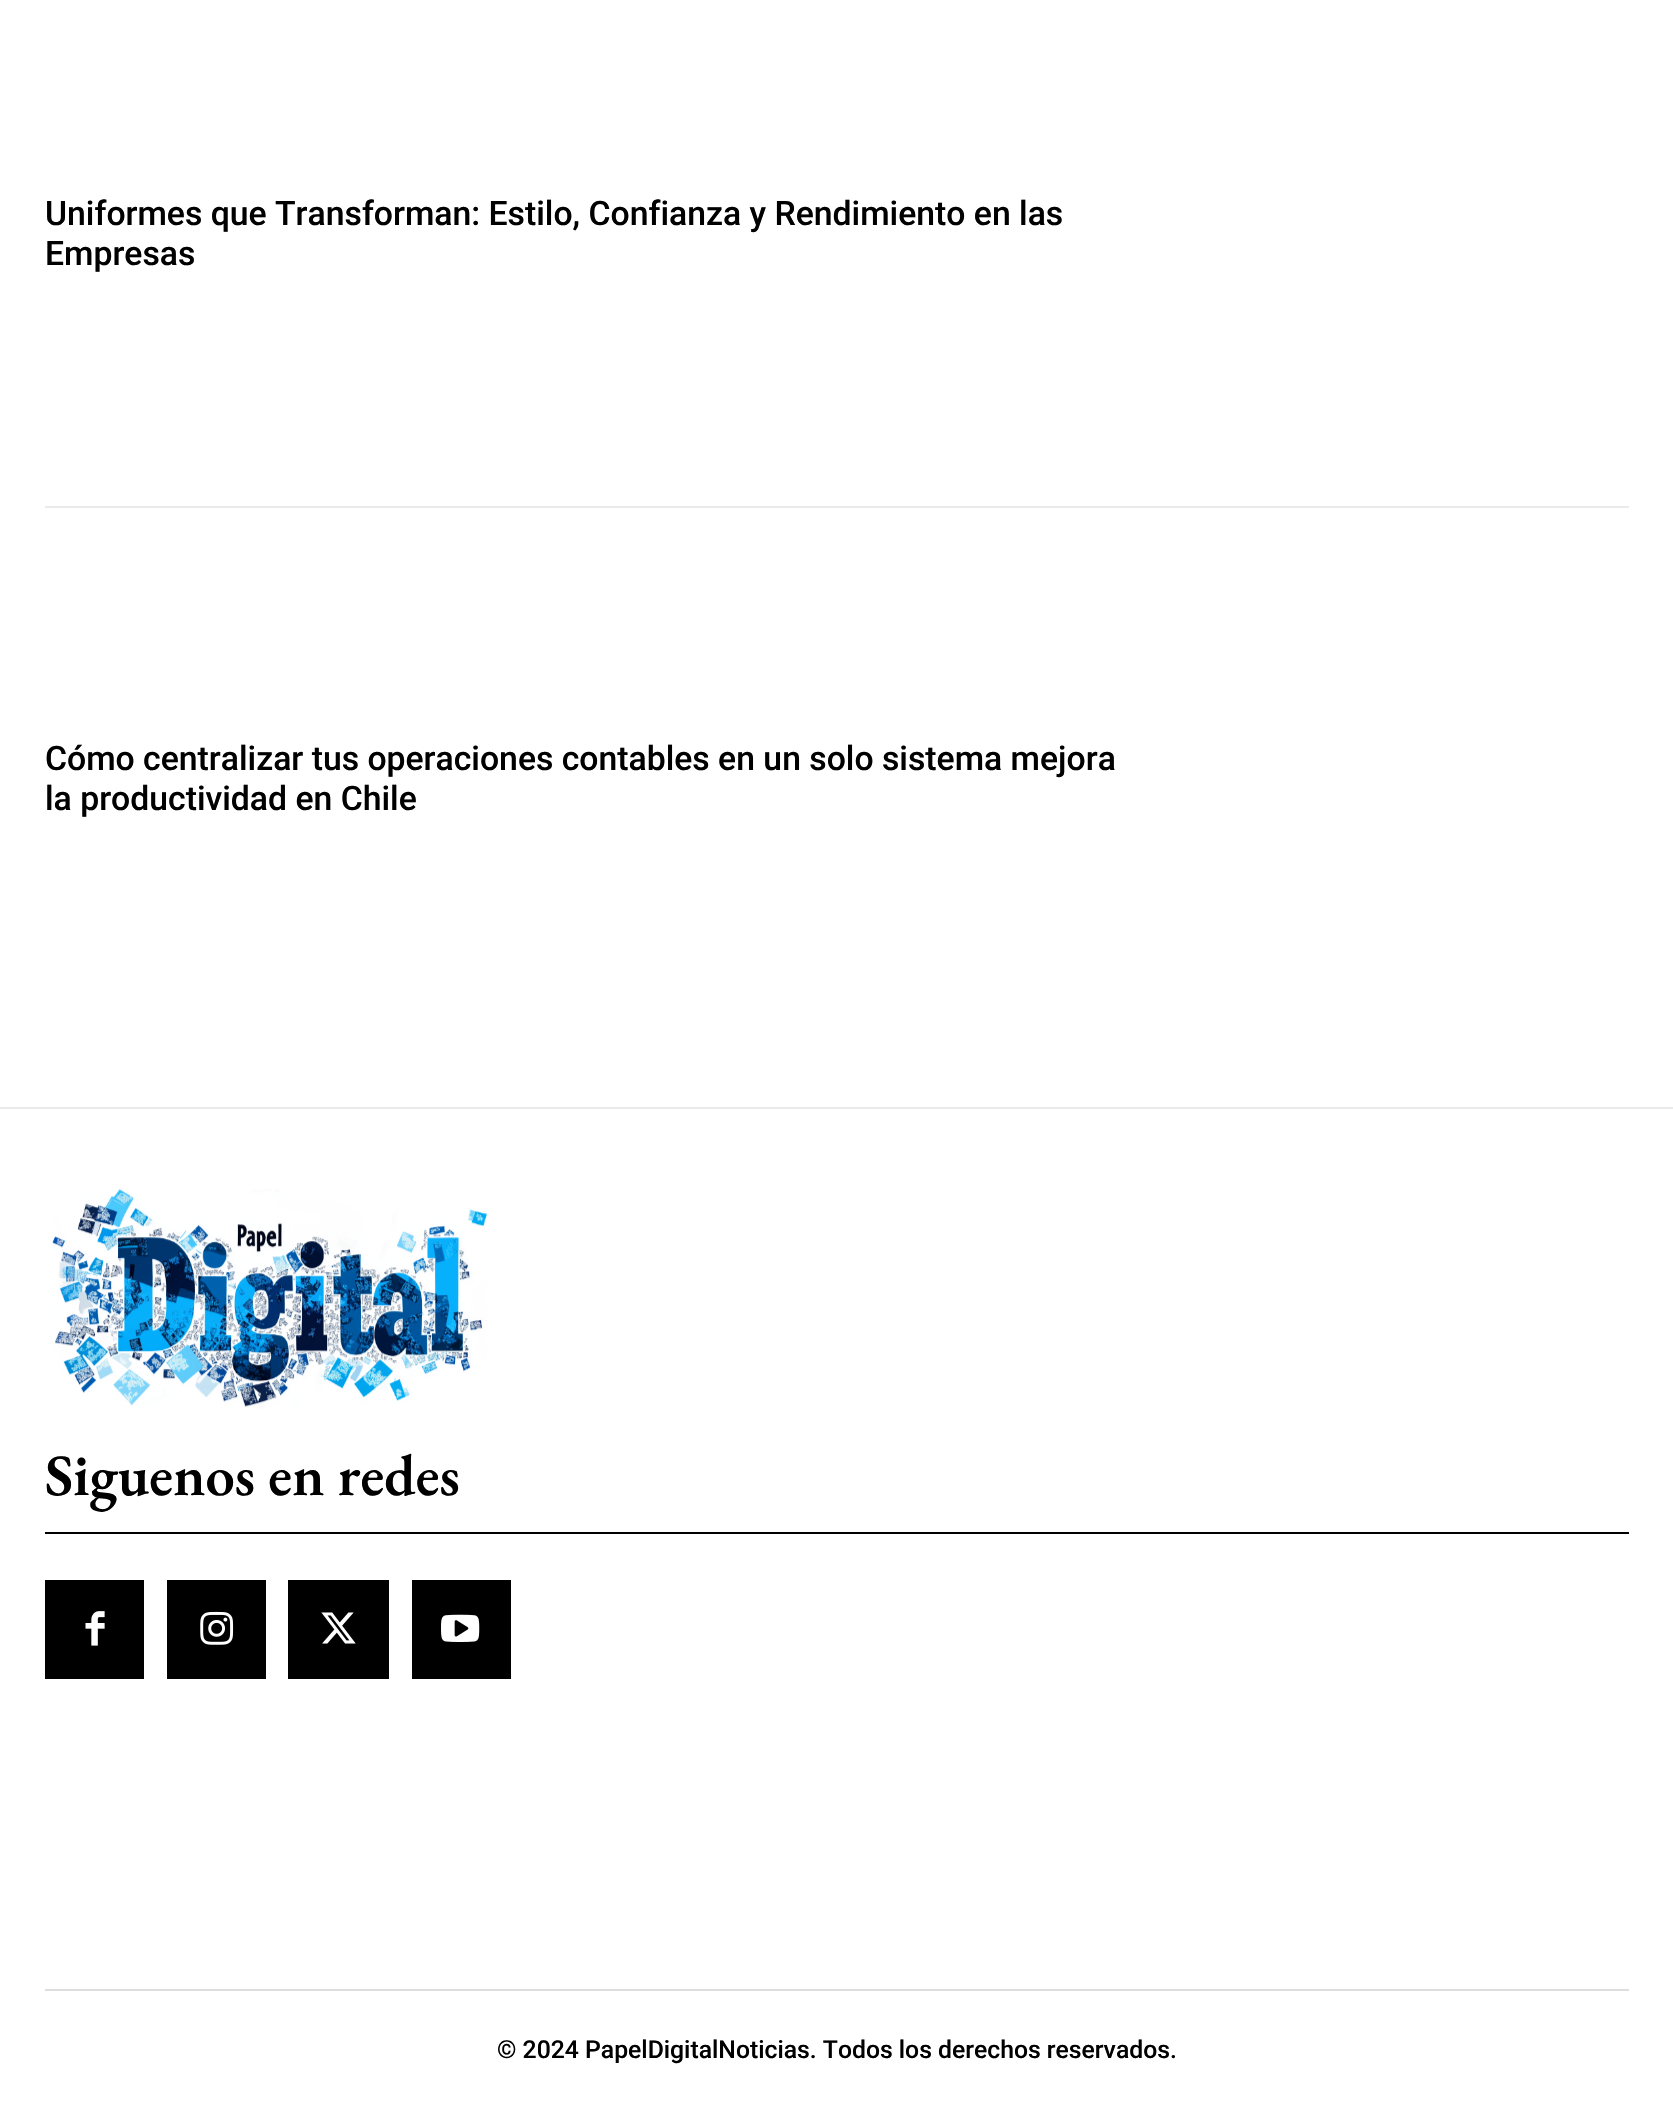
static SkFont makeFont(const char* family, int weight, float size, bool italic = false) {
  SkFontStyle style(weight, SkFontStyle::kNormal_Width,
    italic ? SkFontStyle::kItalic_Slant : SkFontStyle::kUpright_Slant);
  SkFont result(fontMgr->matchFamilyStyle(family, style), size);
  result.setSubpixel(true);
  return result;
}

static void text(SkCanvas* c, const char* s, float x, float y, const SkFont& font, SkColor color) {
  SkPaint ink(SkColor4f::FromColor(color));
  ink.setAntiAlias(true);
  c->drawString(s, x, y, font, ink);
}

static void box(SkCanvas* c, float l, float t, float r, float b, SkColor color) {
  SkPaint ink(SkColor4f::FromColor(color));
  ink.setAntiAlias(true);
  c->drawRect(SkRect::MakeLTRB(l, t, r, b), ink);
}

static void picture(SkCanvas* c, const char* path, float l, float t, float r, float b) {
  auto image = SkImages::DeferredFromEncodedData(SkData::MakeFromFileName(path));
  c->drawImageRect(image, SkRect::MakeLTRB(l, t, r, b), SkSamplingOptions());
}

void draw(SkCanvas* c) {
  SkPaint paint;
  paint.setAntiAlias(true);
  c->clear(0xffffffff);
  box(c, 45, 506, 1629, 508, 0xffeaeaea);
  SkFont face1 = makeFont("Roboto", 500, 33.75f);
  text(c, "Uniformes que Transforman: Estilo, Confianza y Rendimiento en las", 45, 225, face1, 0xff000000);
  text(c, "Empresas", 45, 265, face1, 0xff000000);
  text(c, "Cómo centralizar tus operaciones contables en un solo sistema mejora", 45, 770, face1, 0xff000000);
  text(c, "la productividad en Chile", 45, 810, face1, 0xff000000);
  box(c, 0, 1107, 1673, 1109, 0xffeaeaea);
  picture(c, "img_01.png", 52, 1189, 487, 1409);
  SkFont face2 = makeFont("EB Garamond", 600, 58.5f);
  text(c, "Siguenos en redes", 45, 1495, face2, 0xff000000);
  box(c, 45, 1532, 1629, 1534, 0xff000000);
  box(c, 45, 1580, 144, 1679, 0xff000000);
  picture(c, "img_02.png", 85, 1611, 105, 1646);
  box(c, 167, 1580, 266, 1679, 0xff000000);
  picture(c, "img_03.png", 200, 1611, 234, 1645);
  box(c, 288, 1580, 389, 1679, 0xff000000);
  picture(c, "img_04.png", 321, 1612, 356, 1644);
  box(c, 412, 1580, 511, 1679, 0xff000000);
  picture(c, "img_05.png", 441, 1614, 480, 1642);
  box(c, 45, 1989, 1629, 1991, 0xffdddddd);
  SkFont face3 = makeFont("Roboto", 500, 24.75f);
  text(c, "© 2024 PapelDigitalNoticias. Todos los derechos reservados.", 497, 2058, face3, 0xff000000);
}
